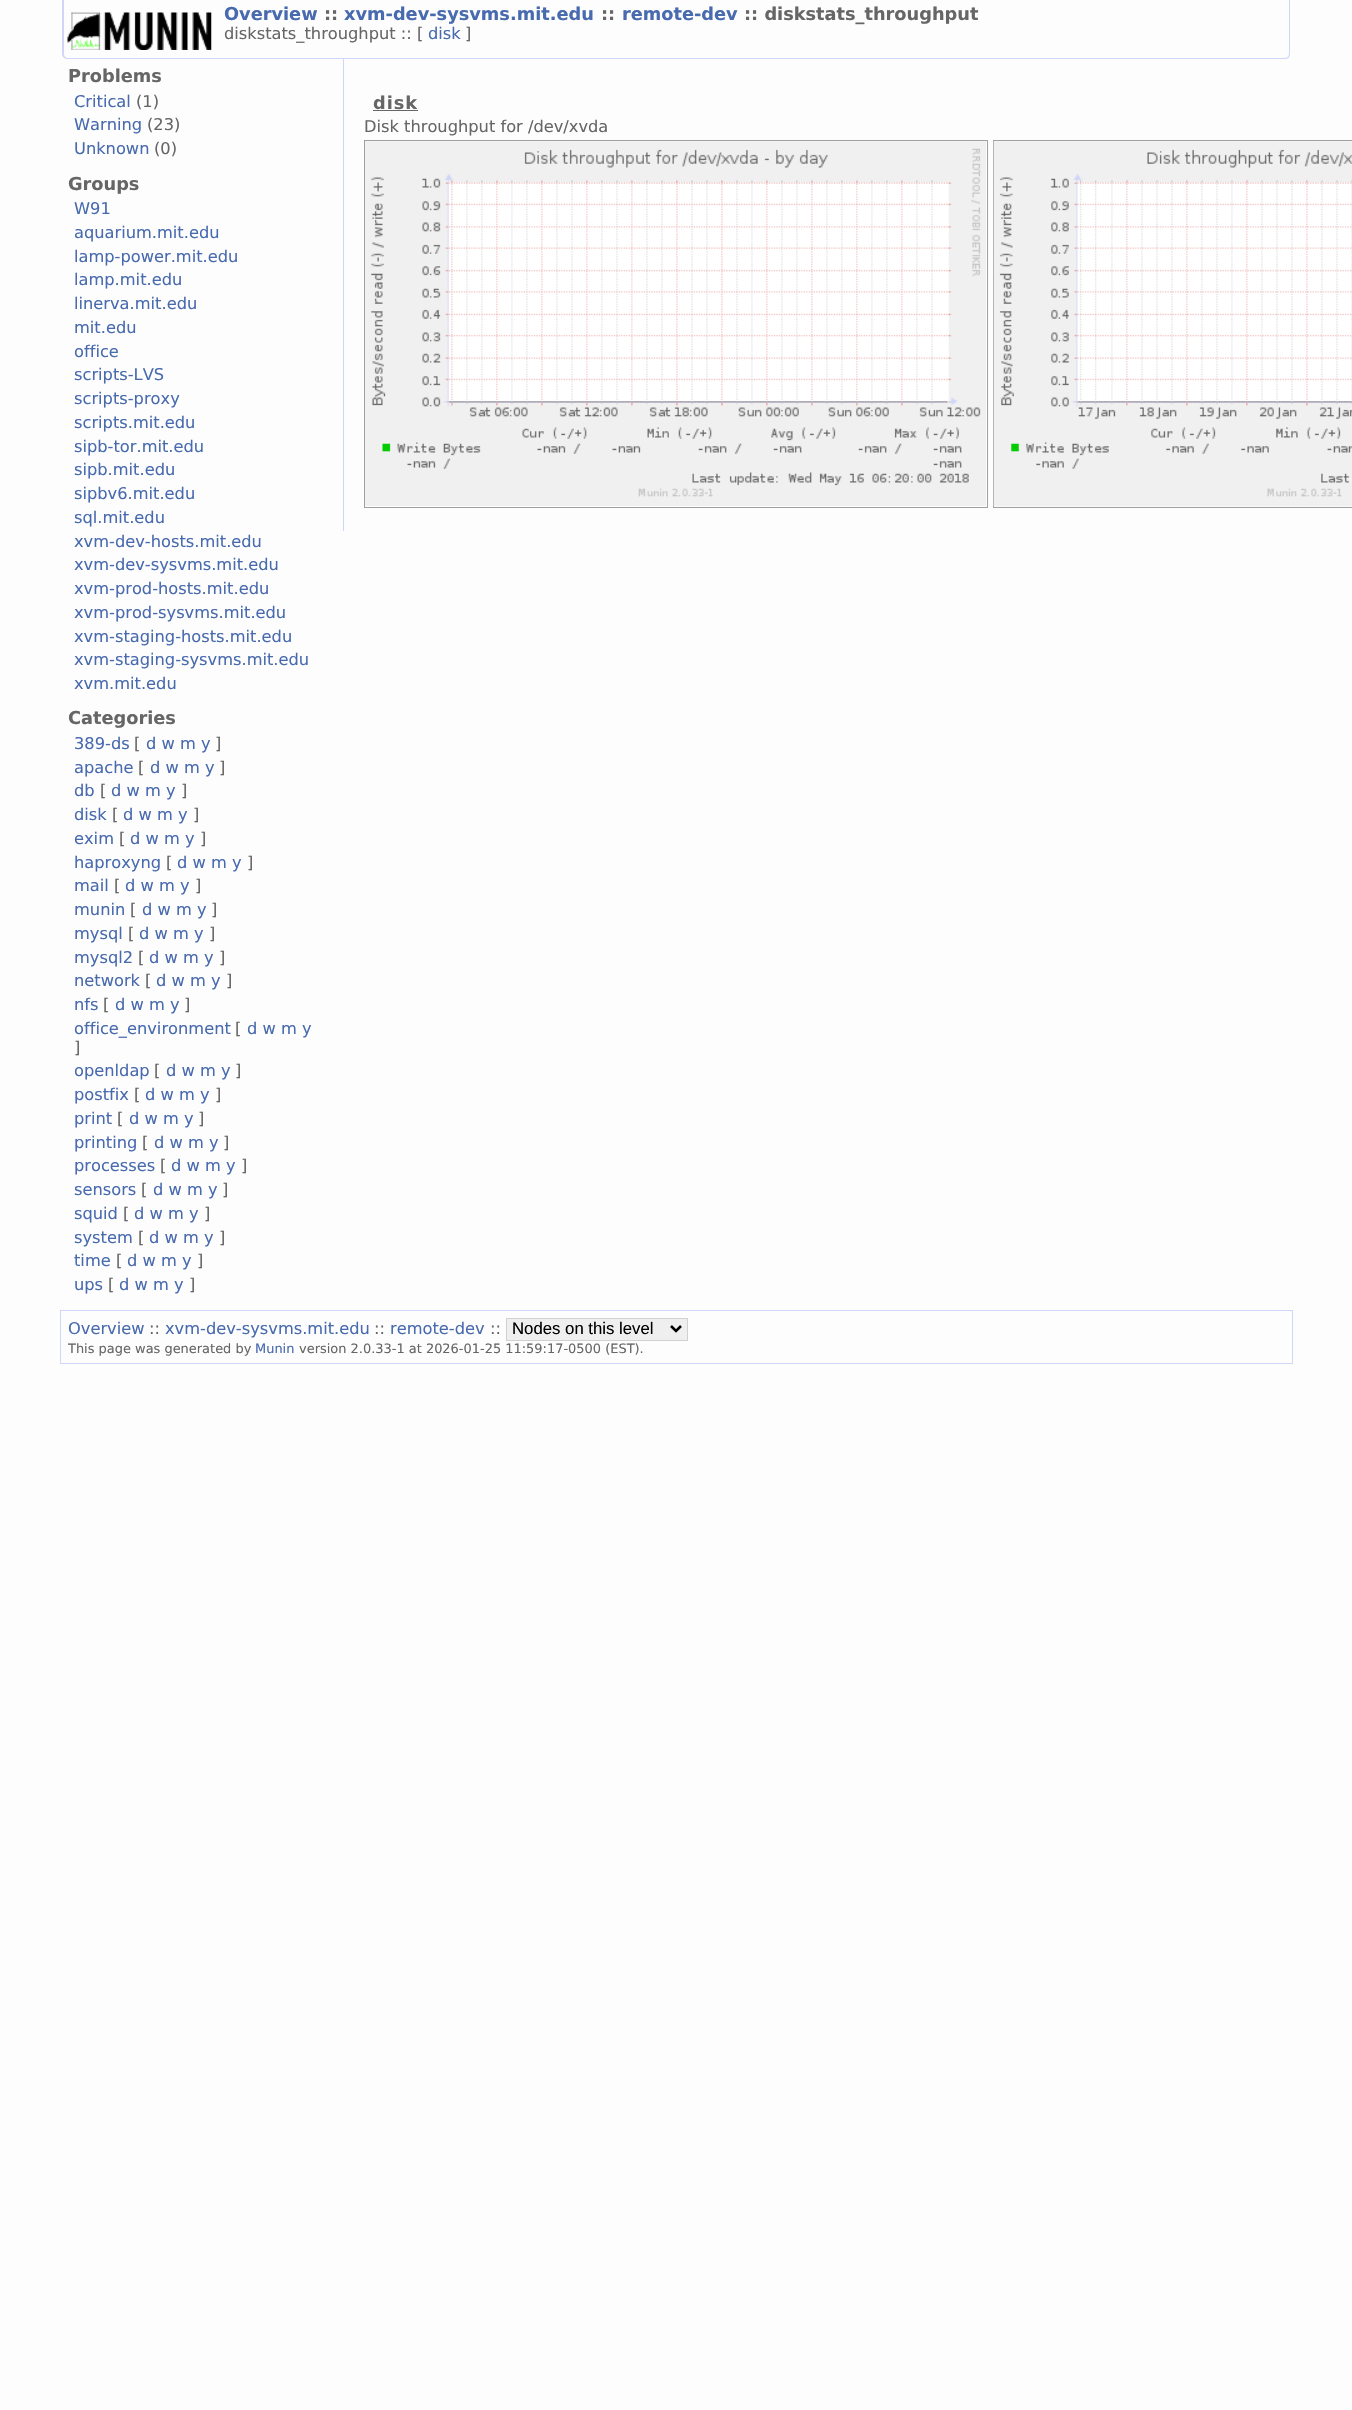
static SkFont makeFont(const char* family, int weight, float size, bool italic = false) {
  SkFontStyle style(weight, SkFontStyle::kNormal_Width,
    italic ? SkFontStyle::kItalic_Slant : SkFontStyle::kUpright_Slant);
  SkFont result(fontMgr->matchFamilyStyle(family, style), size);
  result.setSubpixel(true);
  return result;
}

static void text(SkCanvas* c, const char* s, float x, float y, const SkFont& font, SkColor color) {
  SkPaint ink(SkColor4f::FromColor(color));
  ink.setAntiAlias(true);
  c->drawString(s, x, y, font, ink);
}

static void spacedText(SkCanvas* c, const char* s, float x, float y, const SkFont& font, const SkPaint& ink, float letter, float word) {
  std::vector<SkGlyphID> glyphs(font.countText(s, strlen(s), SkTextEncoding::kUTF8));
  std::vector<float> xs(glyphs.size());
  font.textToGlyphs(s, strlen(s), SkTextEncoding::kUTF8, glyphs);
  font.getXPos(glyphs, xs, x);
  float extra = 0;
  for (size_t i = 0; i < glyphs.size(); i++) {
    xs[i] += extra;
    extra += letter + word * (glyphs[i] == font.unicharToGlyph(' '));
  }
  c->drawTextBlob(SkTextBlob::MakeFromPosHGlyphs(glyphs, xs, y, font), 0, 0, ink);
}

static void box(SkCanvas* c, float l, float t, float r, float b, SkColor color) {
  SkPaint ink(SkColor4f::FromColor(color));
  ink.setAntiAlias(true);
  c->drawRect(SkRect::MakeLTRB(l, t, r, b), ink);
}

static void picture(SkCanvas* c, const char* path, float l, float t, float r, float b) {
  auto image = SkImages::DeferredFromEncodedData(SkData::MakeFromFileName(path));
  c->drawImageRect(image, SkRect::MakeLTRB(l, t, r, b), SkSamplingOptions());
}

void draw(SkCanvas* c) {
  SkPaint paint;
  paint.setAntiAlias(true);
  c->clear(0xfffdfdfd);
  paint.setColor(0xffcfd6f8);
  c->drawPath(SkPathBuilder(SkPathFillType::kEvenOdd).moveTo(62, 0).lineTo(1290, 0).lineTo(1290, 54).cubicTo(1290, 57, 1288, 59, 1285, 59).lineTo(68, 59).cubicTo(65, 59, 62, 57, 62, 54).close().moveTo(64, 0).lineTo(1289, 0).lineTo(1289, 54).cubicTo(1289, 56, 1287, 58, 1285, 58).lineTo(68, 58).cubicTo(65, 58, 64, 56, 64, 54).close().detach(), paint);
  picture(c, "img_01.png", 67, 12, 212, 50);
  SkFont face1 = makeFont("DejaVu Sans", 700, 17.75f);
  text(c, "Overview", 224, 20, face1, 0xff486aaf);
  text(c, "::", 324, 20, face1, 0xff666666);
  text(c, "xvm-dev-sysvms.mit.edu", 344, 20, face1, 0xff486aaf);
  text(c, "::", 601, 20, face1, 0xff666666);
  text(c, "remote-dev", 622, 20, face1, 0xff486aaf);
  text(c, ":: diskstats_throughput", 744, 20, face1, 0xff666666);
  SkFont face2 = makeFont("DejaVu Sans", 400, 16.25f);
  text(c, "diskstats_throughput :: [", 224, 39, face2, 0xff666666);
  text(c, "disk", 428, 39, face2, 0xff486aaf);
  text(c, "]", 465, 39, face2, 0xff666666);
  text(c, "Problems", 68, 82, face1, 0xff666666);
  text(c, "Critical", 74, 107, face2, 0xff486aaf);
  text(c, "(1)", 136, 107, face2, 0xff666666);
  text(c, "Warning", 74, 130, face2, 0xff486aaf);
  text(c, "(23)", 147, 130, face2, 0xff666666);
  text(c, "Unknown", 74, 154, face2, 0xff486aaf);
  text(c, "(0)", 154, 154, face2, 0xff666666);
  text(c, "Groups", 68, 190, face1, 0xff666666);
  text(c, "W91", 74, 214, face2, 0xff486aaf);
  text(c, "aquarium.mit.edu", 74, 238, face2, 0xff486aaf);
  text(c, "lamp-power.mit.edu", 74, 262, face2, 0xff486aaf);
  text(c, "lamp.mit.edu", 74, 285, face2, 0xff486aaf);
  text(c, "linerva.mit.edu", 74, 309, face2, 0xff486aaf);
  text(c, "mit.edu", 74, 333, face2, 0xff486aaf);
  text(c, "office", 74, 357, face2, 0xff486aaf);
  text(c, "scripts-LVS", 74, 380, face2, 0xff486aaf);
  text(c, "scripts-proxy", 74, 404, face2, 0xff486aaf);
  text(c, "scripts.mit.edu", 74, 428, face2, 0xff486aaf);
  text(c, "sipb-tor.mit.edu", 74, 452, face2, 0xff486aaf);
  text(c, "sipb.mit.edu", 74, 475, face2, 0xff486aaf);
  text(c, "sipbv6.mit.edu", 74, 499, face2, 0xff486aaf);
  text(c, "sql.mit.edu", 74, 523, face2, 0xff486aaf);
  text(c, "xvm-dev-hosts.mit.edu", 74, 547, face2, 0xff486aaf);
  text(c, "xvm-dev-sysvms.mit.edu", 74, 570, face2, 0xff486aaf);
  text(c, "xvm-prod-hosts.mit.edu", 74, 594, face2, 0xff486aaf);
  text(c, "xvm-prod-sysvms.mit.edu", 74, 618, face2, 0xff486aaf);
  text(c, "xvm-staging-hosts.mit.edu", 74, 642, face2, 0xff486aaf);
  text(c, "xvm-staging-sysvms.mit.edu", 74, 665, face2, 0xff486aaf);
  text(c, "xvm.mit.edu", 74, 689, face2, 0xff486aaf);
  text(c, "Categories", 68, 724, face1, 0xff666666);
  text(c, "389-ds", 74, 749, face2, 0xff486aaf);
  text(c, "[", 134, 749, face2, 0xff666666);
  text(c, "d w m y", 146, 749, face2, 0xff486aaf);
  text(c, "]", 215, 749, face2, 0xff666666);
  text(c, "apache", 74, 773, face2, 0xff486aaf);
  text(c, "[", 138, 773, face2, 0xff666666);
  text(c, "d w m y", 150, 773, face2, 0xff486aaf);
  text(c, "]", 219, 773, face2, 0xff666666);
  text(c, "db", 74, 796, face2, 0xff486aaf);
  text(c, "[", 100, 796, face2, 0xff666666);
  text(c, "d w m y", 111, 796, face2, 0xff486aaf);
  text(c, "]", 181, 796, face2, 0xff666666);
  text(c, "disk", 74, 820, face2, 0xff486aaf);
  text(c, "[", 112, 820, face2, 0xff666666);
  text(c, "d w m y", 123, 820, face2, 0xff486aaf);
  text(c, "]", 193, 820, face2, 0xff666666);
  text(c, "exim", 74, 844, face2, 0xff486aaf);
  text(c, "[", 119, 844, face2, 0xff666666);
  text(c, "d w m y", 130, 844, face2, 0xff486aaf);
  text(c, "]", 200, 844, face2, 0xff666666);
  text(c, "haproxyng", 74, 868, face2, 0xff486aaf);
  text(c, "[", 166, 868, face2, 0xff666666);
  text(c, "d w m y", 177, 868, face2, 0xff486aaf);
  text(c, "]", 247, 868, face2, 0xff666666);
  text(c, "mail", 74, 891, face2, 0xff486aaf);
  text(c, "[", 114, 891, face2, 0xff666666);
  text(c, "d w m y", 125, 891, face2, 0xff486aaf);
  text(c, "]", 195, 891, face2, 0xff666666);
  text(c, "munin", 74, 915, face2, 0xff486aaf);
  text(c, "[", 130, 915, face2, 0xff666666);
  text(c, "d w m y", 142, 915, face2, 0xff486aaf);
  text(c, "]", 211, 915, face2, 0xff666666);
  text(c, "mysql", 74, 939, face2, 0xff486aaf);
  text(c, "[", 128, 939, face2, 0xff666666);
  text(c, "d w m y", 139, 939, face2, 0xff486aaf);
  text(c, "]", 209, 939, face2, 0xff666666);
  text(c, "mysql2", 74, 963, face2, 0xff486aaf);
  text(c, "[", 138, 963, face2, 0xff666666);
  text(c, "d w m y", 149, 963, face2, 0xff486aaf);
  text(c, "]", 219, 963, face2, 0xff666666);
  text(c, "network", 74, 986, face2, 0xff486aaf);
  text(c, "[", 145, 986, face2, 0xff666666);
  text(c, "d w m y", 156, 986, face2, 0xff486aaf);
  text(c, "]", 226, 986, face2, 0xff666666);
  text(c, "nfs", 74, 1010, face2, 0xff486aaf);
  text(c, "[", 103, 1010, face2, 0xff666666);
  text(c, "d w m y", 115, 1010, face2, 0xff486aaf);
  text(c, "]", 184, 1010, face2, 0xff666666);
  text(c, "office_environment", 74, 1034, face2, 0xff486aaf);
  text(c, "[", 235, 1034, face2, 0xff666666);
  text(c, "d w m y", 247, 1034, face2, 0xff486aaf);
  text(c, "]", 74, 1053, face2, 0xff666666);
  text(c, "openldap", 74, 1076, face2, 0xff486aaf);
  text(c, "[", 154, 1076, face2, 0xff666666);
  text(c, "d w m y", 166, 1076, face2, 0xff486aaf);
  text(c, "]", 235, 1076, face2, 0xff666666);
  text(c, "postfix", 74, 1100, face2, 0xff486aaf);
  text(c, "[", 134, 1100, face2, 0xff666666);
  text(c, "d w m y", 145, 1100, face2, 0xff486aaf);
  text(c, "]", 215, 1100, face2, 0xff666666);
  text(c, "print", 74, 1124, face2, 0xff486aaf);
  text(c, "[", 117, 1124, face2, 0xff666666);
  text(c, "d w m y", 129, 1124, face2, 0xff486aaf);
  text(c, "]", 198, 1124, face2, 0xff666666);
  text(c, "printing", 74, 1148, face2, 0xff486aaf);
  text(c, "[", 142, 1148, face2, 0xff666666);
  text(c, "d w m y", 154, 1148, face2, 0xff486aaf);
  text(c, "]", 223, 1148, face2, 0xff666666);
  text(c, "processes", 74, 1171, face2, 0xff486aaf);
  text(c, "[", 160, 1171, face2, 0xff666666);
  text(c, "d w m y", 171, 1171, face2, 0xff486aaf);
  text(c, "]", 241, 1171, face2, 0xff666666);
  text(c, "sensors", 74, 1195, face2, 0xff486aaf);
  text(c, "[", 141, 1195, face2, 0xff666666);
  text(c, "d w m y", 153, 1195, face2, 0xff486aaf);
  text(c, "]", 222, 1195, face2, 0xff666666);
  text(c, "squid", 74, 1219, face2, 0xff486aaf);
  text(c, "[", 123, 1219, face2, 0xff666666);
  text(c, "d w m y", 134, 1219, face2, 0xff486aaf);
  text(c, "]", 204, 1219, face2, 0xff666666);
  text(c, "system", 74, 1243, face2, 0xff486aaf);
  text(c, "[", 138, 1243, face2, 0xff666666);
  text(c, "d w m y", 149, 1243, face2, 0xff486aaf);
  text(c, "]", 219, 1243, face2, 0xff666666);
  text(c, "time", 74, 1266, face2, 0xff486aaf);
  text(c, "[", 116, 1266, face2, 0xff666666);
  text(c, "d w m y", 127, 1266, face2, 0xff486aaf);
  text(c, "]", 197, 1266, face2, 0xff666666);
  text(c, "ups", 74, 1290, face2, 0xff486aaf);
  text(c, "[", 108, 1290, face2, 0xff666666);
  text(c, "d w m y", 119, 1290, face2, 0xff486aaf);
  text(c, "]", 189, 1290, face2, 0xff666666);
  box(c, 343, 59, 344, 531, 0xffcfd6f8);
  paint.setColor(0xff666666);
  spacedText(c, "disk", 373, 109, face1, paint, 1, 0);
  box(c, 373, 110, 418, 111, 0xff666666);
  text(c, "Disk throughput for /dev/xvda", 364, 132, face2, 0xff666666);
  paint.setStyle(SkPaint::kStroke_Style);
  paint.setStrokeWidth(1);
  paint.setColor(0xffa0a0a0);
  c->drawRect(SkRect::MakeLTRB(364.5f, 140.5f, 987.5f, 507.5f), paint);
  picture(c, "img_02.png", 365, 141, 986, 506);
  c->drawRect(SkRect::MakeLTRB(993.5f, 140.5f, 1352.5f, 507.5f), paint);
  picture(c, "img_03.png", 993, 141, 1352, 507);
  paint.setColor(0xffcfd6f8);
  c->drawRect(SkRect::MakeLTRB(60.5f, 1310.5f, 1292.5f, 1363.5f), paint);
  text(c, "Overview", 68, 1334, face2, 0xff486aaf);
  text(c, "::", 149, 1334, face2, 0xff666666);
  text(c, "xvm-dev-sysvms.mit.edu", 165, 1334, face2, 0xff486aaf);
  text(c, "::", 374, 1334, face2, 0xff666666);
  text(c, "remote-dev", 390, 1334, face2, 0xff486aaf);
  text(c, "::", 490, 1334, face2, 0xff666666);
  paint.setStyle(SkPaint::kFill_Style);
  paint.setColor(0xffefefef);
  c->drawRect(SkRect::MakeLTRB(506.5f, 1318.5f, 687.5f, 1340.5f), paint);
  paint.setStyle(SkPaint::kStroke_Style);
  paint.setColor(0xffd1d1d1);
  c->drawRect(SkRect::MakeLTRB(506.5f, 1318.5f, 687.5f, 1340.5f), paint);
  paint.setStrokeWidth(2.5f);
  paint.setColor(0xff000000);
  c->drawPath(SkPathBuilder().moveTo(671, 1326).lineTo(676, 1331).lineTo(681, 1326).detach(), paint);
  SkFont face3 = makeFont("Liberation Sans", 400, 16.75f);
  text(c, "Nodes on this level", 512, 1334, face3, 0xff000000);
  SkFont face4 = makeFont("DejaVu Sans", 400, 12.95f);
  text(c, "This page was generated by", 68, 1353, face4, 0xff666666);
  text(c, "Munin", 255, 1353, face4, 0xff486aaf);
  text(c, "version 2.0.33-1 at 2026-01-25 11:59:17-0500 (EST).", 299, 1353, face4, 0xff666666);
}
